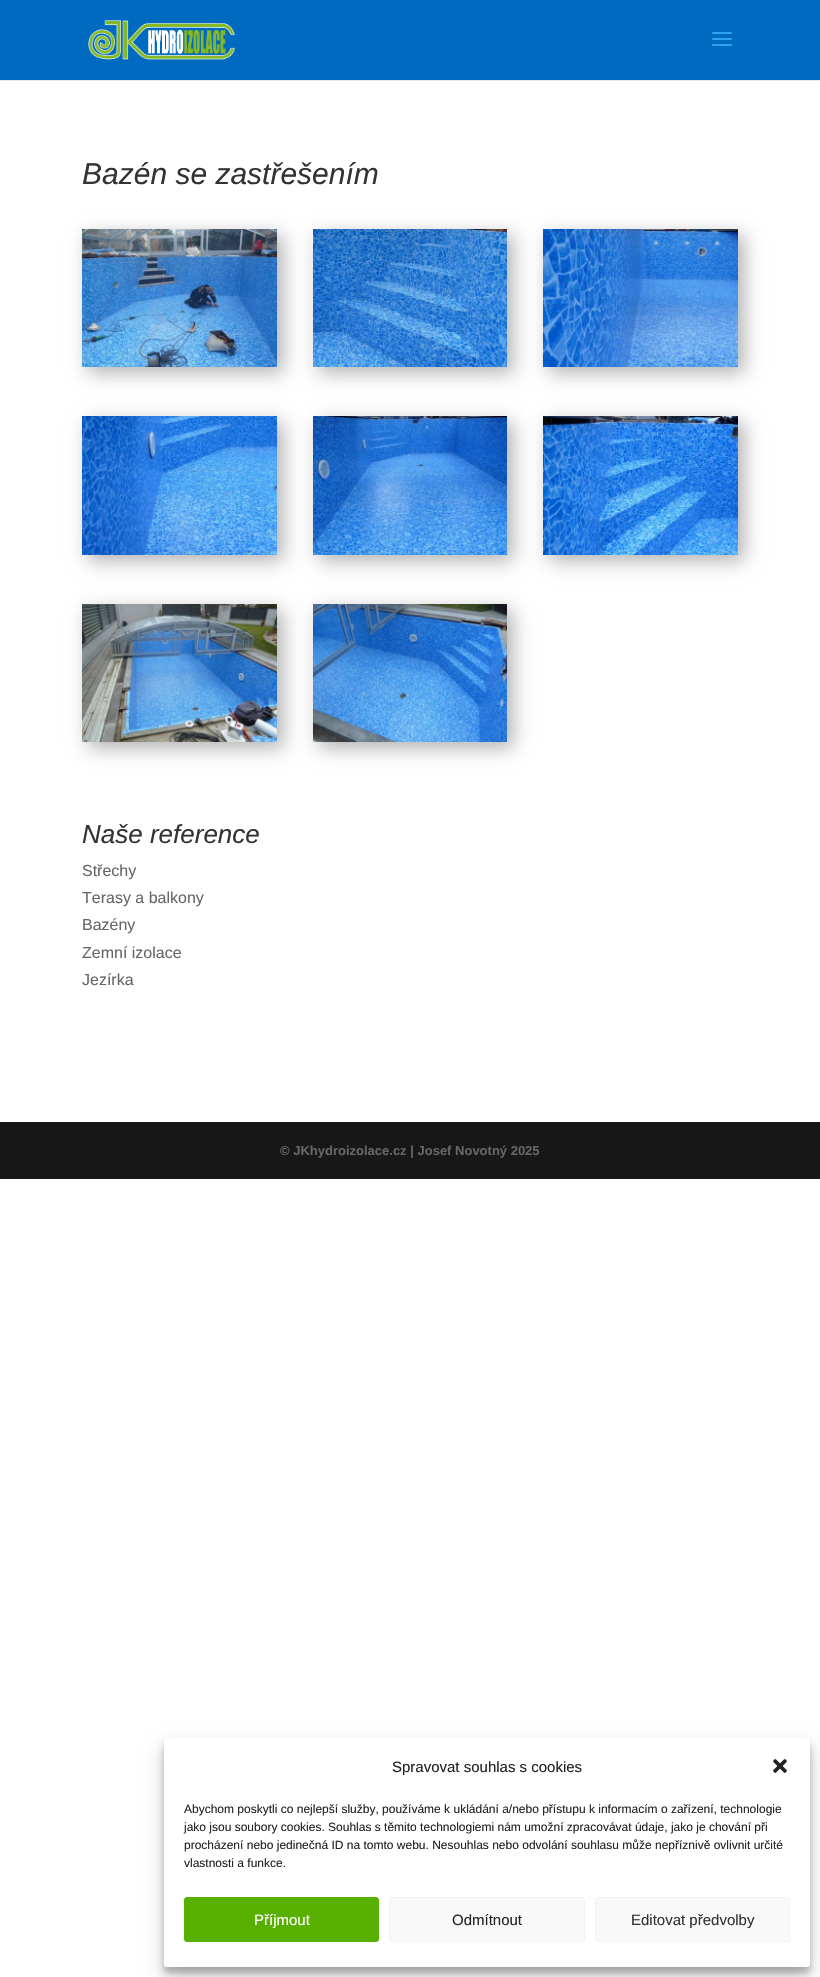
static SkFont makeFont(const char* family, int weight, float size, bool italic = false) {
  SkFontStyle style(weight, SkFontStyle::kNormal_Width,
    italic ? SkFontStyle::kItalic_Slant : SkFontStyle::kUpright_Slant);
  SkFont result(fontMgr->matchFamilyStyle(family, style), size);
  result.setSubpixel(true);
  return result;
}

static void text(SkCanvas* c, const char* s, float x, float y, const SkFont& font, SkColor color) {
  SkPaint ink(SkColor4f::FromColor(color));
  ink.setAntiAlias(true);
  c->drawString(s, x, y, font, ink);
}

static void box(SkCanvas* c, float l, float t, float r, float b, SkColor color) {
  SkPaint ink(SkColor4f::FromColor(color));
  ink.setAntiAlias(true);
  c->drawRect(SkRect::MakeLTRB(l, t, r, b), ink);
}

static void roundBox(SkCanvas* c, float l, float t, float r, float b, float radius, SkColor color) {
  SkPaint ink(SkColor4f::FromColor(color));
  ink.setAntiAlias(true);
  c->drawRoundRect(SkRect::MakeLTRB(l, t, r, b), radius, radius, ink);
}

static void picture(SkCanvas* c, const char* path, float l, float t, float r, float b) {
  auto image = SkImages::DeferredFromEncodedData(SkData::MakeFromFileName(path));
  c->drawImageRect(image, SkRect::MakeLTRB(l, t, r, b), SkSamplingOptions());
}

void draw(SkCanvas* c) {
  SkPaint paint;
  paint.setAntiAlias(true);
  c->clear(0xffffffff);
  box(c, 0, 80, 820, 81, 0xffe6e6e6);
  box(c, 0, 0, 820, 80, 0xff006ac1);
  picture(c, "img_01.png", 88, 20, 236, 60);
  picture(c, "img_02.png", 712, 32, 732, 46);
  SkFont face1 = makeFont("Liberation Sans", 400, 30, true);
  text(c, "Bazén se zastřešením", 82, 184, face1, 0xff333333);
  paint.setColor(0x4d000000);
  paint.setMaskFilter(SkMaskFilter::MakeBlur(kNormal_SkBlurStyle, 9));
  c->drawRect(SkRect::MakeLTRB(88, 235, 283, 373), paint);
  paint.setMaskFilter(nullptr);
  picture(c, "img_03.png", 82, 229, 277, 367);
  paint.setMaskFilter(SkMaskFilter::MakeBlur(kNormal_SkBlurStyle, 9));
  c->drawRect(SkRect::MakeLTRB(319, 235, 513, 373), paint);
  paint.setMaskFilter(nullptr);
  picture(c, "img_04.png", 313, 229, 507, 367);
  paint.setMaskFilter(SkMaskFilter::MakeBlur(kNormal_SkBlurStyle, 9));
  c->drawRect(SkRect::MakeLTRB(549, 235, 744, 373), paint);
  paint.setMaskFilter(nullptr);
  picture(c, "img_05.png", 543, 229, 738, 367);
  paint.setMaskFilter(SkMaskFilter::MakeBlur(kNormal_SkBlurStyle, 9));
  c->drawRect(SkRect::MakeLTRB(88, 422, 283, 561), paint);
  paint.setMaskFilter(nullptr);
  picture(c, "img_06.png", 82, 416, 277, 555);
  paint.setMaskFilter(SkMaskFilter::MakeBlur(kNormal_SkBlurStyle, 9));
  c->drawRect(SkRect::MakeLTRB(319, 422, 513, 561), paint);
  paint.setMaskFilter(nullptr);
  picture(c, "img_07.png", 313, 416, 507, 555);
  paint.setMaskFilter(SkMaskFilter::MakeBlur(kNormal_SkBlurStyle, 9));
  c->drawRect(SkRect::MakeLTRB(549, 422, 744, 561), paint);
  paint.setMaskFilter(nullptr);
  picture(c, "img_08.png", 543, 416, 738, 555);
  paint.setMaskFilter(SkMaskFilter::MakeBlur(kNormal_SkBlurStyle, 9));
  c->drawRect(SkRect::MakeLTRB(88, 610, 283, 748), paint);
  paint.setMaskFilter(nullptr);
  picture(c, "img_09.png", 82, 604, 277, 742);
  paint.setMaskFilter(SkMaskFilter::MakeBlur(kNormal_SkBlurStyle, 9));
  c->drawRect(SkRect::MakeLTRB(319, 610, 513, 748), paint);
  paint.setMaskFilter(nullptr);
  picture(c, "img_10.png", 313, 604, 507, 742);
  SkFont face2 = makeFont("Liberation Sans", 400, 26, true);
  text(c, "Naše reference", 82, 843, face2, 0xff333333);
  SkFont face3 = makeFont("Liberation Sans", 400, 16);
  text(c, "Střechy", 82, 876, face3, 0xff666666);
  text(c, "Terasy a balkony", 82, 903, face3, 0xff666666);
  text(c, "Bazény", 82, 930, face3, 0xff666666);
  text(c, "Zemní izolace", 82, 958, face3, 0xff666666);
  text(c, "Jezírka", 82, 985, face3, 0xff666666);
  box(c, 0, 1122, 820, 1179, 0xff171717);
  SkFont face4 = makeFont("Liberation Sans", 700, 13);
  text(c, "© JKhydroizolace.cz | Josef Novotný 2025", 280, 1155, face4, 0xff666666);
  paint.setColor(0x3b000000);
  paint.setMaskFilter(SkMaskFilter::MakeBlur(kNormal_SkBlurStyle, 3));
  c->drawRoundRect(SkRect::MakeLTRB(164, 1744, 810, 1973), 3, 3, paint);
  paint.setMaskFilter(nullptr);
  paint.setColor(0x30000000);
  paint.setMaskFilter(SkMaskFilter::MakeBlur(kNormal_SkBlurStyle, 10));
  c->drawRoundRect(SkRect::MakeLTRB(164, 1748, 810, 1977), 3, 3, paint);
  paint.setMaskFilter(nullptr);
  roundBox(c, 164, 1738, 810, 1967, 3, 0xffffffff);
  SkFont face5 = makeFont("Liberation Sans", 400, 15);
  text(c, "Spravovat souhlas s cookies", 392, 1772, face5, 0xff222222);
  picture(c, "img_11.png", 773, 1759, 787, 1773);
  SkFont face6 = makeFont("Liberation Sans", 400, 12);
  text(c, "Abychom poskytli co nejlepší služby, používáme k ukládání a/nebo přístupu k informacím o zařízení, technologie", 184, 1813, face6, 0xff222222);
  text(c, "jako jsou soubory cookies. Souhlas s těmito technologiemi nám umožní zpracovávat údaje, jako je chování při", 184, 1831, face6, 0xff222222);
  text(c, "procházení nebo jedinečná ID na tomto webu. Nesouhlas nebo odvolání souhlasu může nepříznivě ovlivnit určité", 184, 1849, face6, 0xff222222);
  text(c, "vlastnosti a funkce.", 184, 1867, face6, 0xff222222);
  paint.setColor(0xff57af00);
  c->drawRoundRect(SkRect::MakeLTRB(184.5f, 1897.5f, 378.5f, 1941.5f), 2.5f, 2.5f, paint);
  paint.setStyle(SkPaint::kStroke_Style);
  paint.setStrokeWidth(1);
  c->drawRoundRect(SkRect::MakeLTRB(184.5f, 1897.5f, 378.5f, 1941.5f), 2.5f, 2.5f, paint);
  text(c, "Příjmout", 254, 1925, face5, 0xffffffff);
  paint.setStyle(SkPaint::kFill_Style);
  paint.setColor(0xfff9f9f9);
  c->drawRoundRect(SkRect::MakeLTRB(389.5f, 1897.5f, 584.5f, 1941.5f), 2.5f, 2.5f, paint);
  paint.setStyle(SkPaint::kStroke_Style);
  paint.setColor(0xfff2f2f2);
  c->drawRoundRect(SkRect::MakeLTRB(389.5f, 1897.5f, 584.5f, 1941.5f), 2.5f, 2.5f, paint);
  text(c, "Odmítnout", 452, 1925, face5, 0xff222222);
  paint.setStyle(SkPaint::kFill_Style);
  paint.setColor(0xfff9f9f9);
  c->drawRoundRect(SkRect::MakeLTRB(595.5f, 1897.5f, 789.5f, 1941.5f), 2.5f, 2.5f, paint);
  paint.setStyle(SkPaint::kStroke_Style);
  paint.setColor(0xfff2f2f2);
  c->drawRoundRect(SkRect::MakeLTRB(595.5f, 1897.5f, 789.5f, 1941.5f), 2.5f, 2.5f, paint);
  text(c, "Editovat předvolby", 631, 1925, face5, 0xff333333);
}
